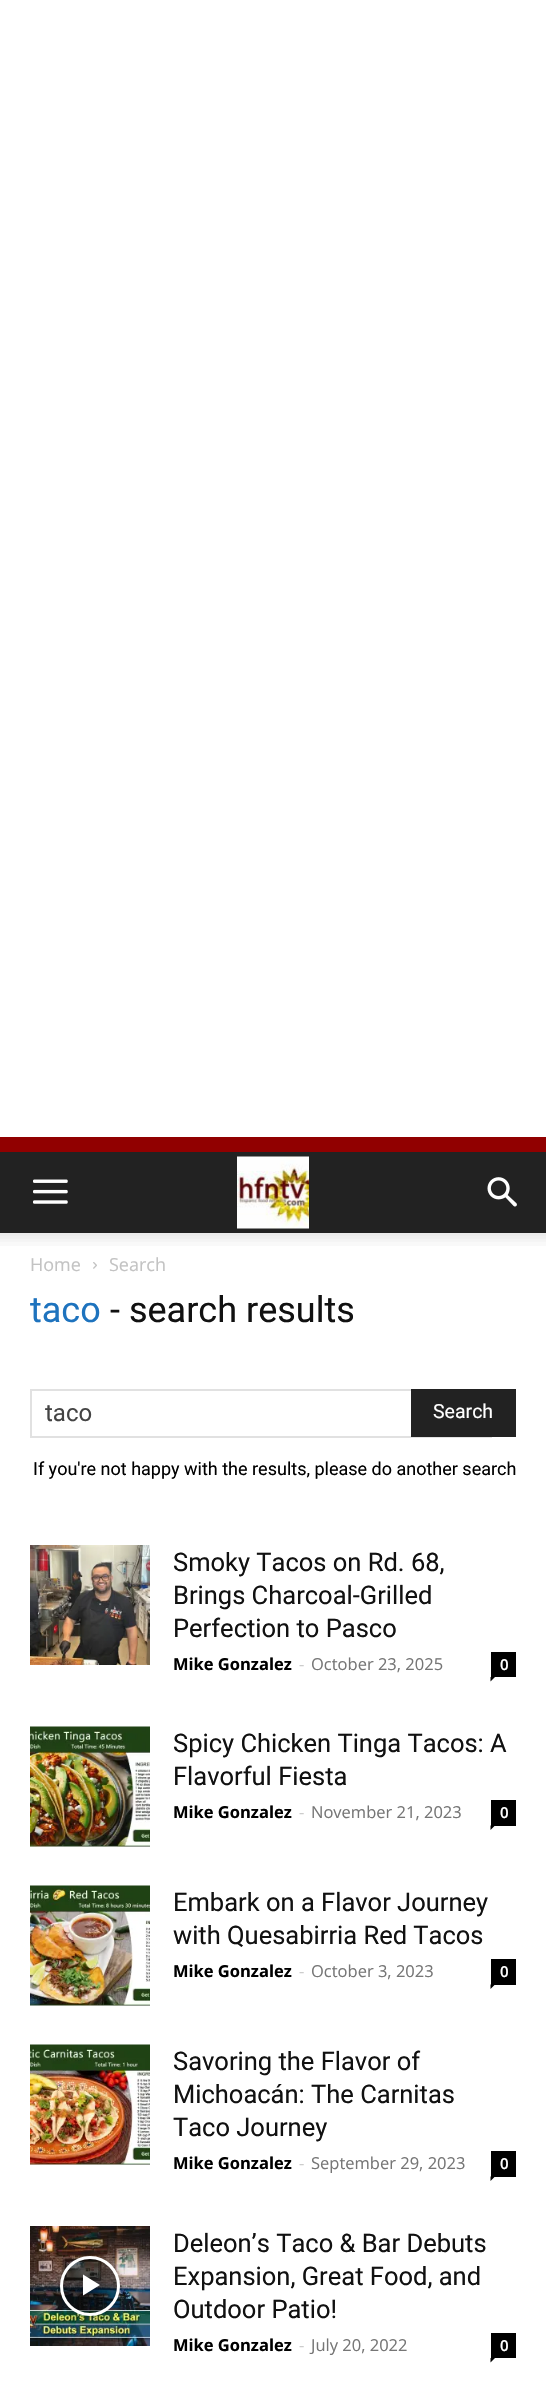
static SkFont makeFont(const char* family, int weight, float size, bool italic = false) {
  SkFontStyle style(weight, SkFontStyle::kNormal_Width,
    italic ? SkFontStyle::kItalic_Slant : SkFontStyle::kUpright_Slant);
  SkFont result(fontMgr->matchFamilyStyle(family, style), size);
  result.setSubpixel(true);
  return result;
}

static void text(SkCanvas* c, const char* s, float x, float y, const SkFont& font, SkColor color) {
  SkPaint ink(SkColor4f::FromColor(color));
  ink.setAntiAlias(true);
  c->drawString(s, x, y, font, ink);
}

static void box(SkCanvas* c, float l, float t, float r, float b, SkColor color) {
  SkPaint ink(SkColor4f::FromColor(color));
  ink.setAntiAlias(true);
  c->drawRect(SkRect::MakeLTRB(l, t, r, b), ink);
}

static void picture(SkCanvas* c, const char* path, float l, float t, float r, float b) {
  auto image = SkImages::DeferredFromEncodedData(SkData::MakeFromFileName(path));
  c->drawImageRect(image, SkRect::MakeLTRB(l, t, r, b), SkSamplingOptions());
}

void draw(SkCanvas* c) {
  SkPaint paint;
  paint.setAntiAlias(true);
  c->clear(0xff910000);
  box(c, 0, 0, 546, 1137, 0xffffffff);
  box(c, 0, 1152, 546, 1233, 0xff222222);
  picture(c, "img_01.png", 33, 1179, 68, 1204);
  picture(c, "img_02.png", 237, 1156, 309, 1229);
  picture(c, "img_03.png", 487, 1177, 517, 1207);
  box(c, 0, 1233, 546, 2388, 0xffffffff);
  picture(c, "img_04.png", 0, 1233, 546, 1246);
  SkFont face1 = makeFont("Open Sans", 400, 18);
  text(c, "Home", 30, 1271, face1, 0xffc3c3c3);
  picture(c, "img_05.png", 93, 1262, 97, 1269);
  text(c, "Search", 109, 1271, face1, 0xffc3c3c3);
  SkFont face2 = makeFont("Roboto", 400, 36);
  text(c, "taco", 30, 1322, face2, 0xff1e73be);
  text(c, "- search results", 110, 1322, face2, 0xff111111);
  box(c, 30, 1389, 411, 1391, 0xffe1e1e1);
  box(c, 30, 1436, 492, 1438, 0xffe1e1e1);
  box(c, 30, 1389, 32, 1437, 0xffe1e1e1);
  SkFont face3 = makeFont("Roboto", 400, 24);
  text(c, "taco", 45, 1421, face3, 0xff444444);
  box(c, 411, 1389, 516, 1437, 0xff222222);
  SkFont face4 = makeFont("Roboto", 400, 19.5f);
  text(c, "Search", 433, 1418, face4, 0xffffffff);
  SkFont face5 = makeFont("Roboto", 400, 18);
  text(c, "If you're not happy with the results, please do another search", 33, 1475, face5, 0xff000000);
  picture(c, "img_06.png", 30, 1545, 150, 1665);
  SkFont face6 = makeFont("Roboto", 400, 25.5f);
  text(c, "Smoky Tacos on Rd. 68,", 173, 1571, face6, 0xff111111);
  text(c, "Brings Charcoal-Grilled", 173, 1604, face6, 0xff111111);
  text(c, "Perfection to Pasco", 173, 1637, face6, 0xff111111);
  SkFont face7 = makeFont("Open Sans", 700, 16.5f);
  text(c, "Mike Gonzalez", 173, 1670, face7, 0xff000000);
  SkFont face8 = makeFont("Open Sans", 400, 16.5f);
  text(c, "-", 299, 1670, face8, 0xffcccccc);
  text(c, "October 23, 2025", 311, 1670, face8, 0xff767676);
  box(c, 491, 1652, 516, 1677, 0xff000000);
  SkFont face9 = makeFont("Open Sans", 600, 15);
  text(c, "0", 500, 1670, face9, 0xffffffff);
  paint.setColor(0xff000000);
  c->drawPath(SkPathBuilder().moveTo(490.5f, 1677).lineTo(495, 1677).lineTo(490.5f, 1681.5f).close().detach(), paint);
  picture(c, "img_07.png", 30, 1726, 150, 1847);
  text(c, "Spicy Chicken Tinga Tacos: A", 173, 1752, face6, 0xff111111);
  text(c, "Flavorful Fiesta", 173, 1785, face6, 0xff111111);
  text(c, "Mike Gonzalez", 173, 1818, face7, 0xff000000);
  text(c, "-", 299, 1818, face8, 0xffcccccc);
  text(c, "November 21, 2023", 311, 1818, face8, 0xff767676);
  box(c, 491, 1800, 516, 1826, 0xff000000);
  text(c, "0", 500, 1818, face9, 0xffffffff);
  c->drawPath(SkPathBuilder().moveTo(490.5f, 1825.5f).lineTo(495, 1825.5f).lineTo(490.5f, 1830).close().detach(), paint);
  picture(c, "img_08.png", 30, 1885, 150, 2006);
  text(c, "Embark on a Flavor Journey", 173, 1911, face6, 0xff111111);
  text(c, "with Quesabirria Red Tacos", 173, 1944, face6, 0xff111111);
  text(c, "Mike Gonzalez", 173, 1977, face7, 0xff000000);
  text(c, "-", 299, 1977, face8, 0xffcccccc);
  text(c, "October 3, 2023", 311, 1977, face8, 0xff767676);
  box(c, 491, 1959, 516, 1985, 0xff000000);
  text(c, "0", 500, 1977, face9, 0xffffffff);
  c->drawPath(SkPathBuilder().moveTo(490.5f, 1984.5f).lineTo(495, 1984.5f).lineTo(490.5f, 1989).close().detach(), paint);
  picture(c, "img_09.png", 30, 2044, 150, 2165);
  text(c, "Savoring the Flavor of", 173, 2070, face6, 0xff111111);
  text(c, "Michoacán: The Carnitas", 173, 2103, face6, 0xff111111);
  text(c, "Taco Journey", 173, 2136, face6, 0xff111111);
  text(c, "Mike Gonzalez", 173, 2169, face7, 0xff000000);
  text(c, "-", 299, 2169, face8, 0xffcccccc);
  text(c, "September 29, 2023", 311, 2169, face8, 0xff767676);
  box(c, 491, 2151, 516, 2177, 0xff000000);
  text(c, "0", 500, 2169, face9, 0xffffffff);
  c->drawPath(SkPathBuilder().moveTo(490.5f, 2176.5f).lineTo(495, 2176.5f).lineTo(490.5f, 2181).close().detach(), paint);
  picture(c, "img_10.png", 30, 2226, 150, 2346);
  c->save();
  c->clipPath(SkPathBuilder(SkPathFillType::kEvenOdd).moveTo(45, 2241).lineTo(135, 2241).lineTo(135, 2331).lineTo(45, 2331).close().moveTo(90, 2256).cubicTo(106.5f, 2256, 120, 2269.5f, 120, 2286).cubicTo(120, 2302.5f, 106.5f, 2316, 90, 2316).cubicTo(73.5f, 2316, 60, 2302.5f, 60, 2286).cubicTo(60, 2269.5f, 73.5f, 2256, 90, 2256).close().detach(), true);
  paint.setColor(0x66000000);
  paint.setMaskFilter(SkMaskFilter::MakeBlur(kNormal_SkBlurStyle, 4.5f));
  c->drawRoundRect(SkRect::MakeLTRB(60, 2256, 120, 2316), 30, 30, paint);
  paint.setMaskFilter(nullptr);
  c->restore();
  paint.setColor(0x7a000000);
  c->drawCircle(90, 2286, 28.5f, paint);
  paint.setStyle(SkPaint::kStroke_Style);
  paint.setStrokeWidth(3);
  paint.setColor(0xffffffff);
  c->drawCircle(90, 2286, 28.5f, paint);
  paint.setStyle(SkPaint::kFill_Style);
  c->drawPath(SkPathBuilder().moveTo(83, 2274.5f).lineTo(83, 2295.5f).lineTo(100, 2285).close().detach(), paint);
  text(c, "Deleon’s Taco & Bar Debuts", 173, 2252, face6, 0xff111111);
  text(c, "Expansion, Great Food, and", 173, 2285, face6, 0xff111111);
  text(c, "Outdoor Patio!", 173, 2318, face6, 0xff111111);
  text(c, "Mike Gonzalez", 173, 2351, face7, 0xff000000);
  text(c, "-", 299, 2351, face8, 0xffcccccc);
  text(c, "July 20, 2022", 311, 2351, face8, 0xff767676);
  box(c, 491, 2333, 516, 2358, 0xff000000);
  text(c, "0", 500, 2351, face9, 0xffffffff);
  paint.setColor(0xff000000);
  c->drawPath(SkPathBuilder().moveTo(490.5f, 2358).lineTo(495, 2358).lineTo(490.5f, 2362.5f).close().detach(), paint);
}
